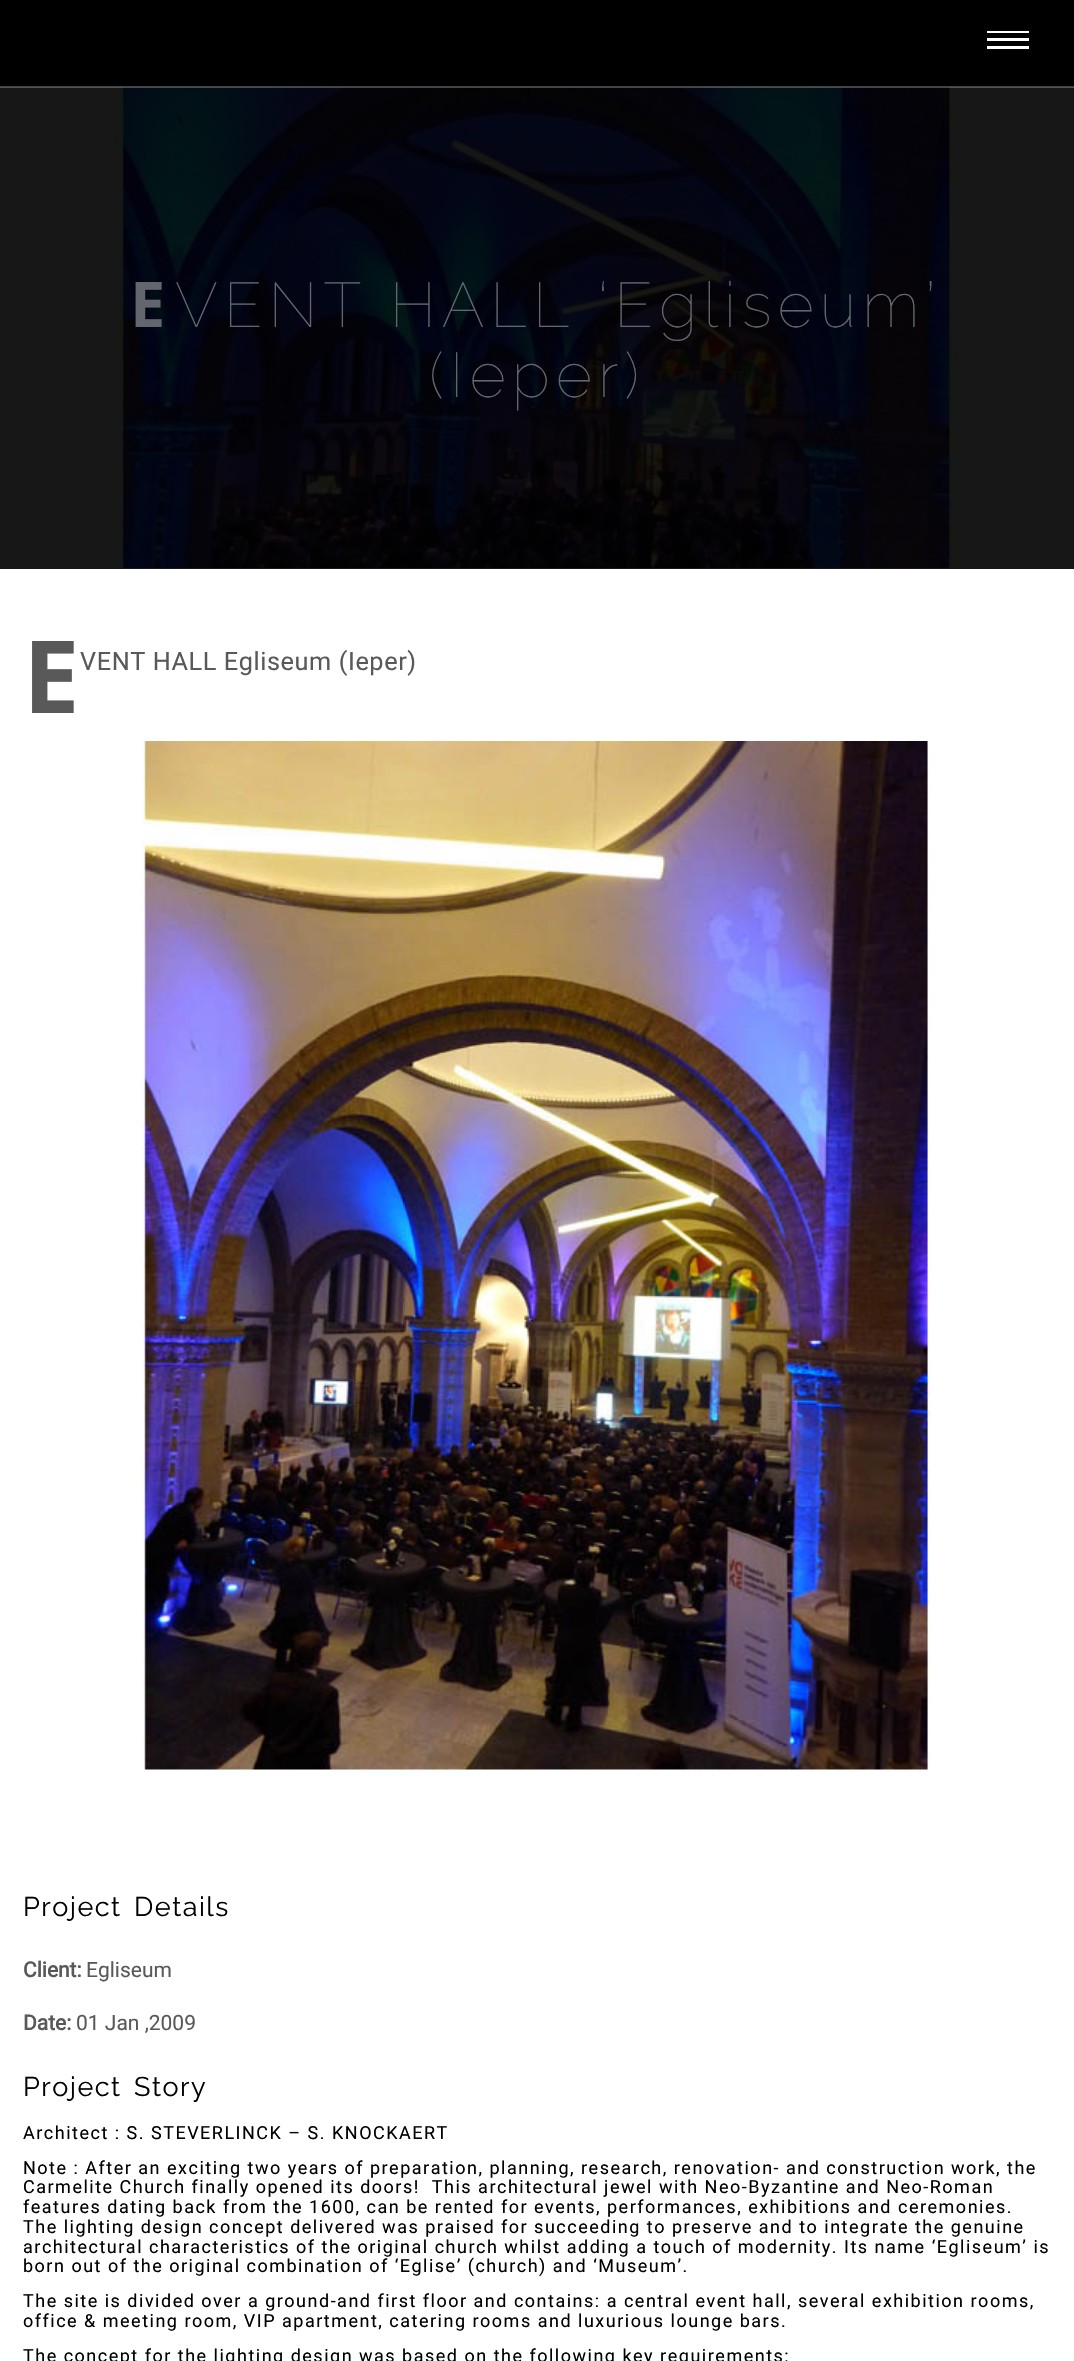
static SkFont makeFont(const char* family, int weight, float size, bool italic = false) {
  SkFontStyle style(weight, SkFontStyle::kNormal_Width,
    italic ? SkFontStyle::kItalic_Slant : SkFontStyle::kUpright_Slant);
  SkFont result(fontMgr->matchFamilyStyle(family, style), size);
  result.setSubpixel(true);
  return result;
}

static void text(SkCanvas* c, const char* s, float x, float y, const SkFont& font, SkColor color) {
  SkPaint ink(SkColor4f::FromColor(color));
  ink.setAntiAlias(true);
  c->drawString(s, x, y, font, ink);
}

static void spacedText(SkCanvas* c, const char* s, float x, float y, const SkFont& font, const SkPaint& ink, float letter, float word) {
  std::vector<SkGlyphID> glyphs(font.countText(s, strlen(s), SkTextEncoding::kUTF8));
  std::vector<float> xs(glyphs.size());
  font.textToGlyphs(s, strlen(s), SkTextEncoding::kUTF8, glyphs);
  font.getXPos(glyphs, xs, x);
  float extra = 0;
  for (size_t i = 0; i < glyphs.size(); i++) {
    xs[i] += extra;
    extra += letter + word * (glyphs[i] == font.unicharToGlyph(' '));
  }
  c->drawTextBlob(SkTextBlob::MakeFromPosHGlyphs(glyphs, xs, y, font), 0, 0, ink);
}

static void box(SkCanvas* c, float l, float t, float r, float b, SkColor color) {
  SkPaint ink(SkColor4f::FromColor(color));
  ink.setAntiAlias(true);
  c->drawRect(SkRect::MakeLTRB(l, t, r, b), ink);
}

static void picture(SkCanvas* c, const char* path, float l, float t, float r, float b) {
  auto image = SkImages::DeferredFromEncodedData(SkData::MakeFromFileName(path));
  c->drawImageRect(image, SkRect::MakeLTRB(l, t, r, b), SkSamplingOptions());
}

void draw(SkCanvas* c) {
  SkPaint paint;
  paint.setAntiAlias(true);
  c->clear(0xffffffff);
  box(c, 0, 87, 1074, 569, 0xff171717);
  box(c, 0, 0, 1074, 87, 0xff000000);
  picture(c, "img_01.png", 100, 87, 973, 568);
  box(c, 0, 86, 1074, 88, 0x42ffffff);
  paint.setColor(0xffffffff);
  c->drawPath(SkPathBuilder().moveTo(987, 33).lineTo(987, 31).lineTo(1029, 31).lineTo(1029, 33).close().moveTo(987, 41).lineTo(987, 38).lineTo(1029, 38).lineTo(1029, 41).close().moveTo(987, 49).lineTo(987, 46).lineTo(1029, 46).lineTo(1029, 49).close().detach(), paint);
  SkFont face1 = makeFont("Noto Sans", 700, 63);
  paint.setColor(0xff63666f);
  spacedText(c, "E", 130, 327, face1, paint, 6, 0);
  SkFont face2 = makeFont("Raleway", 100, 63);
  spacedText(c, "VENT HALL ‘Egliseum’", 175, 327, face2, paint, 6, 0);
  spacedText(c, "(Ieper)", 429, 397, face2, paint, 6, 0);
  SkFont face3 = makeFont("Noto Sans", 700, 101);
  paint.setColor(0xff595959);
  spacedText(c, "E", 23, 713, face3, paint, 0.6f, 0);
  SkFont face4 = makeFont("Roboto", 400, 25.25f);
  spacedText(c, "VENT HALL Egliseum (Ieper)", 80, 670, face4, paint, 0.6f, 0);
  picture(c, "img_02.png", 141, 741, 931, 1770);
  SkFont face5 = makeFont("Raleway", 400, 27);
  paint.setColor(0xff000000);
  spacedText(c, "Project Details", 23, 1916, face5, paint, 1.5f, 4);
  SkFont face6 = makeFont("Roboto", 700, 21);
  text(c, "Client:", 23, 1977, face6, 0xff595959);
  SkFont face7 = makeFont("Roboto", 400, 21);
  text(c, "Egliseum", 86, 1977, face7, 0xff595959);
  text(c, "Date:", 23, 2030, face6, 0xff595959);
  text(c, "01 Jan ,2009", 76, 2030, face7, 0xff595959);
  spacedText(c, "Project Story", 23, 2096, face5, paint, 1.5f, 4);
  SkFont face8 = makeFont("Roboto", 400, 18);
  spacedText(c, "Architect : S. STEVERLINCK – S. KNOCKAERT", 23, 2139, face8, paint, 1.5f, 0);
  spacedText(c, "Note : After an exciting two years of preparation, planning, research, renovation- and construction work, the", 23, 2174, face8, paint, 1.5f, 0);
  spacedText(c, "Carmelite Church finally opened its doors!  This architectural jewel with Neo-Byzantine and Neo-Roman", 23, 2193, face8, paint, 1.5f, 0);
  spacedText(c, "features dating back from the 1600, can be rented for events, performances, exhibitions and ceremonies.", 23, 2213, face8, paint, 1.5f, 0);
  spacedText(c, "The lighting design concept delivered was praised for succeeding to preserve and to integrate the genuine", 23, 2233, face8, paint, 1.5f, 0);
  spacedText(c, "architectural characteristics of the original church whilst adding a touch of modernity. Its name ‘Egliseum’ is", 23, 2253, face8, paint, 1.5f, 0);
  spacedText(c, "born out of the original combination of ‘Eglise’ (church) and ‘Museum’.", 23, 2272, face8, paint, 1.5f, 0);
  spacedText(c, "The site is divided over a ground-and first floor and contains: a central event hall, several exhibition rooms,", 23, 2307, face8, paint, 1.5f, 0);
  spacedText(c, "office & meeting room, VIP apartment, catering rooms and luxurious lounge bars.", 23, 2327, face8, paint, 1.5f, 0);
  spacedText(c, "The concept for the lighting design was based on the following key requirements:", 23, 2362, face8, paint, 1.5f, 0);
}
